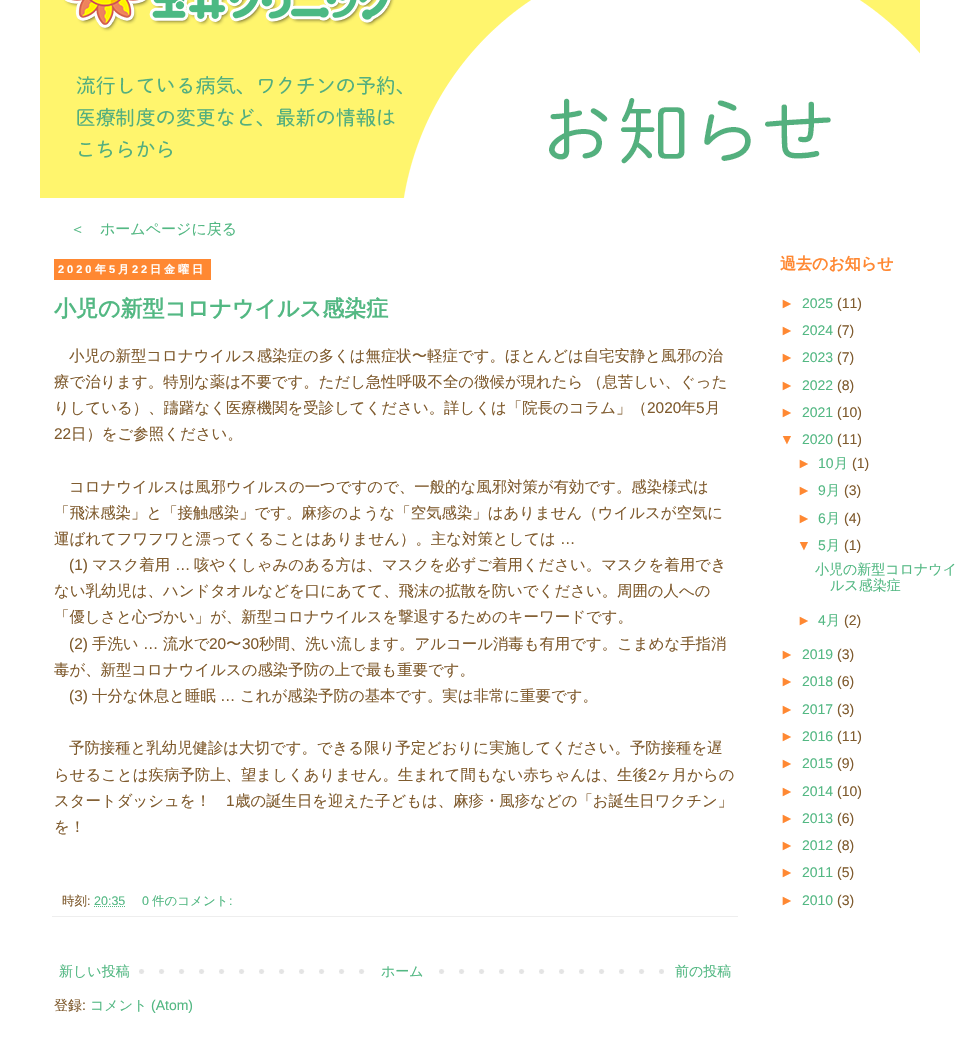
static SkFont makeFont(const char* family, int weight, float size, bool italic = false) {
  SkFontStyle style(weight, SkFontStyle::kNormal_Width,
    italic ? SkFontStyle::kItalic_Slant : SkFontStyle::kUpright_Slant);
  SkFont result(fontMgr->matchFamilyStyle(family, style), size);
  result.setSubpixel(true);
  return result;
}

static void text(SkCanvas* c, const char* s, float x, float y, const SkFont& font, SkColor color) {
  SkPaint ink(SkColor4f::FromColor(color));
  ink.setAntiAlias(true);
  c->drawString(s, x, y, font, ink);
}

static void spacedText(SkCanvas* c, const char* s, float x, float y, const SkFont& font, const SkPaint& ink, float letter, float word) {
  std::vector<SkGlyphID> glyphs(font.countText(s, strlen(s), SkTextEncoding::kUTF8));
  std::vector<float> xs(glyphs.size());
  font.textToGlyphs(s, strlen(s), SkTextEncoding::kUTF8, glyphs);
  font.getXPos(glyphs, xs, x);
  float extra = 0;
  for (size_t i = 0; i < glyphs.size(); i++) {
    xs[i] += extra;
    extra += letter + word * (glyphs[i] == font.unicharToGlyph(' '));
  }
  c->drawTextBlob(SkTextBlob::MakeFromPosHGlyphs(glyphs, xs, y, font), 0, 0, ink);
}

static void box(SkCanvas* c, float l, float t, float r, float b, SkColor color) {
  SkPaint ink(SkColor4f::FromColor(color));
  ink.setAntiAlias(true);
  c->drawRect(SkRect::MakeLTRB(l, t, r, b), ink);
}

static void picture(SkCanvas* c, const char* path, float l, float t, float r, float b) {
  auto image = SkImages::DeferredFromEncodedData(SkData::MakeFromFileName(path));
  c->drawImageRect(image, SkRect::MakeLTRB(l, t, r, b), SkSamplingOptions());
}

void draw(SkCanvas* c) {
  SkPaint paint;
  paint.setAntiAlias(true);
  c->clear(0xffffffff);
  picture(c, "img_01.png", 40, 0, 920, 198);
  SkFont face1 = makeFont("WenQuanYi Zen Hei", 500, 15);
  text(c, "＜　ホームページに戻る", 70, 234, face1, 0xff53b883);
  box(c, 54, 259, 211, 280, 0xffff8832);
  SkFont face2 = makeFont("Liberation Sans", 700, 11);
  paint.setColor(0xffffffff);
  spacedText(c, "2020", 58, 273, face2, paint, 3, 0);
  SkFont face3 = makeFont("WenQuanYi Zen Hei", 700, 11);
  spacedText(c, "年", 95, 273, face3, paint, 3, 0);
  spacedText(c, "5", 109, 273, face2, paint, 3, 0);
  spacedText(c, "月", 118, 273, face3, paint, 3, 0);
  spacedText(c, "22", 132, 273, face2, paint, 3, 0);
  spacedText(c, "日金曜日", 150, 273, face3, paint, 3, 0);
  SkFont face4 = makeFont("WenQuanYi Zen Hei", 700, 22);
  text(c, "小児の新型コロナウイルス感染症", 54, 316, face4, 0xff53b883);
  SkFont face5 = makeFont("WenQuanYi Zen Hei", 500, 15.4f);
  text(c, "小児の新型コロナウイルス感染症の多くは無症状〜軽症です。ほとんどは自宅安静と風邪の治", 69, 361, face5, 0xff7f5b2e);
  paint.setColor(0xff7f5b2e);
  spacedText(c, "療で治ります。特別な薬は不要です。ただし急性呼吸不全の徴候が現れたら （息苦しい、ぐった", 54, 387, face5, paint, 0, -1);
  text(c, "りしている）、躊躇なく医療機関を受診してください。詳しくは「院長のコラム」（", 54, 413, face5, 0xff7f5b2e);
  SkFont face6 = makeFont("Liberation Sans", 400, 15.4f);
  text(c, "2020", 647, 413, face6, 0xff7f5b2e);
  text(c, "年", 681, 413, face5, 0xff7f5b2e);
  text(c, "5", 696, 413, face6, 0xff7f5b2e);
  text(c, "月", 705, 413, face5, 0xff7f5b2e);
  text(c, "22", 54, 439, face6, 0xff7f5b2e);
  text(c, "日）をご参照ください。", 71, 439, face5, 0xff7f5b2e);
  text(c, "コロナウイルスは風邪ウイルスの一つですので、一般的な風邪対策が有効です。感染様式は", 69, 492, face5, 0xff7f5b2e);
  text(c, "「飛沫感染」と「接触感染」です。麻疹のような「空気感染」はありません（ウイルスが空気に", 54, 518, face5, 0xff7f5b2e);
  text(c, "運ばれてフワフワと漂ってくることはありません）。主な対策としては", 54, 544, face5, 0xff7f5b2e);
  text(c, "…", 560, 544, face6, 0xff7f5b2e);
  text(c, "(1)", 69, 570, face6, 0xff7f5b2e);
  text(c, "マスク着用", 92, 570, face5, 0xff7f5b2e);
  text(c, "…", 175, 570, face6, 0xff7f5b2e);
  text(c, "咳やくしゃみのある方は、マスクを必ずご着用ください。マスクを着用でき", 194, 570, face5, 0xff7f5b2e);
  text(c, "ない乳幼児は、ハンドタオルなどを口にあてて、飛沫の拡散を防いでください。周囲の人への", 54, 596, face5, 0xff7f5b2e);
  text(c, "「優しさと心づかい」が、新型コロナウイルスを撃退するためのキーワードです。", 54, 622, face5, 0xff7f5b2e);
  text(c, "(2)", 69, 649, face6, 0xff7f5b2e);
  text(c, "手洗い", 92, 649, face5, 0xff7f5b2e);
  text(c, "流水で", 163, 649, face5, 0xff7f5b2e);
  text(c, "20", 209, 649, face6, 0xff7f5b2e);
  text(c, "〜", 226, 649, face5, 0xff7f5b2e);
  text(c, "30", 242, 649, face6, 0xff7f5b2e);
  text(c, "秒間、洗い流します。アルコール消毒も有用です。こまめな手指消", 259, 649, face5, 0xff7f5b2e);
  text(c, "…", 143, 649, face6, 0xff7f5b2e);
  text(c, "毒が、新型コロナウイルスの感染予防の上で最も重要です。", 54, 675, face5, 0xff7f5b2e);
  text(c, "(3)", 69, 701, face6, 0xff7f5b2e);
  text(c, "十分な休息と睡眠", 92, 701, face5, 0xff7f5b2e);
  text(c, "…", 220, 701, face6, 0xff7f5b2e);
  text(c, "これが感染予防の基本です。実は非常に重要です。", 240, 701, face5, 0xff7f5b2e);
  text(c, "予防接種と乳幼児健診は大切です。できる限り予定どおりに実施してください。予防接種を遅", 69, 753, face5, 0xff7f5b2e);
  text(c, "らせることは疾病予防上、望ましくありません。生まれて間もない赤ちゃんは、生後", 54, 780, face5, 0xff7f5b2e);
  text(c, "2", 648, 780, face6, 0xff7f5b2e);
  text(c, "ヶ月からの", 656, 780, face5, 0xff7f5b2e);
  text(c, "スタートダッシュを！", 54, 806, face5, 0xff7f5b2e);
  text(c, "1", 226, 806, face6, 0xff7f5b2e);
  text(c, "歳の誕生日を迎えた子どもは、麻疹・風疹などの「お誕生日ワクチン」", 235, 806, face5, 0xff7f5b2e);
  text(c, "を！", 54, 832, face5, 0xff7f5b2e);
  box(c, 52, 916, 738, 917, 0xffeeeeee);
  SkFont face7 = makeFont("WenQuanYi Zen Hei", 500, 12.5f);
  text(c, "時刻", 62, 905, face7, 0xff7f5b2e);
  SkFont face8 = makeFont("Liberation Sans", 400, 12.5f);
  text(c, ":", 87, 905, face8, 0xff7f5b2e);
  text(c, "20:35", 94, 905, face8, 0xff53b883);
  paint.setStyle(SkPaint::kStroke_Style);
  paint.setStrokeWidth(1);
  paint.setColor(0xff53b883);
  paint.setPathEffect(SkDashPathEffect::Make({{1, 1}}, 0));
  c->drawPath(SkPathBuilder().moveTo(94, 906.5f).lineTo(125.5f, 906.5f).detach(), paint);
  paint.setPathEffect(nullptr);
  text(c, "0", 142, 905, face8, 0xff53b883);
  text(c, "件のコメント", 152, 905, face7, 0xff53b883);
  text(c, ":", 229, 905, face8, 0xff53b883);
  picture(c, "img_02.png", 139, 969, 664, 974);
  SkFont face9 = makeFont("WenQuanYi Zen Hei", 500, 14);
  text(c, "新しい投稿", 59, 976, face9, 0xff53b883);
  box(c, 379, 969, 425, 974, 0xffffffff);
  text(c, "ホーム", 381, 976, face9, 0xff53b883);
  text(c, "前の投稿", 675, 976, face9, 0xff53b883);
  text(c, "登録", 54, 1010, face9, 0xff7f5b2e);
  SkFont face10 = makeFont("Liberation Sans", 400, 14);
  text(c, ":", 82, 1010, face10, 0xff7f5b2e);
  text(c, "コメント", 90, 1010, face9, 0xff53b883);
  text(c, "(Atom)", 151, 1010, face10, 0xff53b883);
  SkFont face11 = makeFont("WenQuanYi Zen Hei", 700, 16);
  text(c, "過去のお知らせ", 780, 269, face11, 0xffff8832);
  text(c, "►", 780, 308, face10, 0xffff8832);
  text(c, "2025", 802, 308, face10, 0xff53b883);
  text(c, "(11)", 837, 308, face10, 0xff7f5b2e);
  text(c, "►", 780, 335, face10, 0xffff8832);
  text(c, "2024", 802, 335, face10, 0xff53b883);
  text(c, "(7)", 837, 335, face10, 0xff7f5b2e);
  text(c, "►", 780, 362, face10, 0xffff8832);
  text(c, "2023", 802, 362, face10, 0xff53b883);
  text(c, "(7)", 837, 362, face10, 0xff7f5b2e);
  text(c, "►", 780, 390, face10, 0xffff8832);
  text(c, "2022", 802, 390, face10, 0xff53b883);
  text(c, "(8)", 837, 390, face10, 0xff7f5b2e);
  text(c, "►", 780, 417, face10, 0xffff8832);
  text(c, "2021", 802, 417, face10, 0xff53b883);
  text(c, "(10)", 837, 417, face10, 0xff7f5b2e);
  text(c, "▼", 780, 444, face10, 0xffff8832);
  text(c, "2020", 802, 444, face10, 0xff53b883);
  text(c, "(11)", 837, 444, face10, 0xff7f5b2e);
  text(c, "►", 797, 468, face10, 0xffff8832);
  text(c, "10", 818, 468, face10, 0xff53b883);
  text(c, "月", 834, 468, face9, 0xff53b883);
  text(c, "(1)", 852, 468, face10, 0xff7f5b2e);
  text(c, "►", 797, 495, face10, 0xffff8832);
  text(c, "9", 818, 495, face10, 0xff53b883);
  text(c, "月", 826, 495, face9, 0xff53b883);
  text(c, "(3)", 844, 495, face10, 0xff7f5b2e);
  text(c, "►", 797, 523, face10, 0xffff8832);
  text(c, "6", 818, 523, face10, 0xff53b883);
  text(c, "月", 826, 523, face9, 0xff53b883);
  text(c, "(4)", 844, 523, face10, 0xff7f5b2e);
  text(c, "▼", 797, 550, face10, 0xffff8832);
  text(c, "5", 818, 550, face10, 0xff53b883);
  text(c, "月", 826, 550, face9, 0xff53b883);
  text(c, "(1)", 844, 550, face10, 0xff7f5b2e);
  text(c, "小児の新型コロナウイ", 815, 574, face9, 0xff53b883);
  text(c, "ルス感染症", 830, 590, face9, 0xff53b883);
  text(c, "►", 797, 625, face10, 0xffff8832);
  text(c, "4", 818, 625, face10, 0xff53b883);
  text(c, "月", 826, 625, face9, 0xff53b883);
  text(c, "(2)", 844, 625, face10, 0xff7f5b2e);
  text(c, "►", 780, 659, face10, 0xffff8832);
  text(c, "2019", 802, 659, face10, 0xff53b883);
  text(c, "(3)", 837, 659, face10, 0xff7f5b2e);
  text(c, "►", 780, 686, face10, 0xffff8832);
  text(c, "2018", 802, 686, face10, 0xff53b883);
  text(c, "(6)", 837, 686, face10, 0xff7f5b2e);
  text(c, "►", 780, 714, face10, 0xffff8832);
  text(c, "2017", 802, 714, face10, 0xff53b883);
  text(c, "(3)", 837, 714, face10, 0xff7f5b2e);
  text(c, "►", 780, 741, face10, 0xffff8832);
  text(c, "2016", 802, 741, face10, 0xff53b883);
  text(c, "(11)", 837, 741, face10, 0xff7f5b2e);
  text(c, "►", 780, 768, face10, 0xffff8832);
  text(c, "2015", 802, 768, face10, 0xff53b883);
  text(c, "(9)", 837, 768, face10, 0xff7f5b2e);
  text(c, "►", 780, 796, face10, 0xffff8832);
  text(c, "2014", 802, 796, face10, 0xff53b883);
  text(c, "(10)", 837, 796, face10, 0xff7f5b2e);
  text(c, "►", 780, 823, face10, 0xffff8832);
  text(c, "2013", 802, 823, face10, 0xff53b883);
  text(c, "(6)", 837, 823, face10, 0xff7f5b2e);
  text(c, "►", 780, 850, face10, 0xffff8832);
  text(c, "2012", 802, 850, face10, 0xff53b883);
  text(c, "(8)", 837, 850, face10, 0xff7f5b2e);
  text(c, "►", 780, 877, face10, 0xffff8832);
  text(c, "2011", 802, 877, face10, 0xff53b883);
  text(c, "(5)", 837, 877, face10, 0xff7f5b2e);
  text(c, "►", 780, 905, face10, 0xffff8832);
  text(c, "2010", 802, 905, face10, 0xff53b883);
  text(c, "(3)", 837, 905, face10, 0xff7f5b2e);
}
